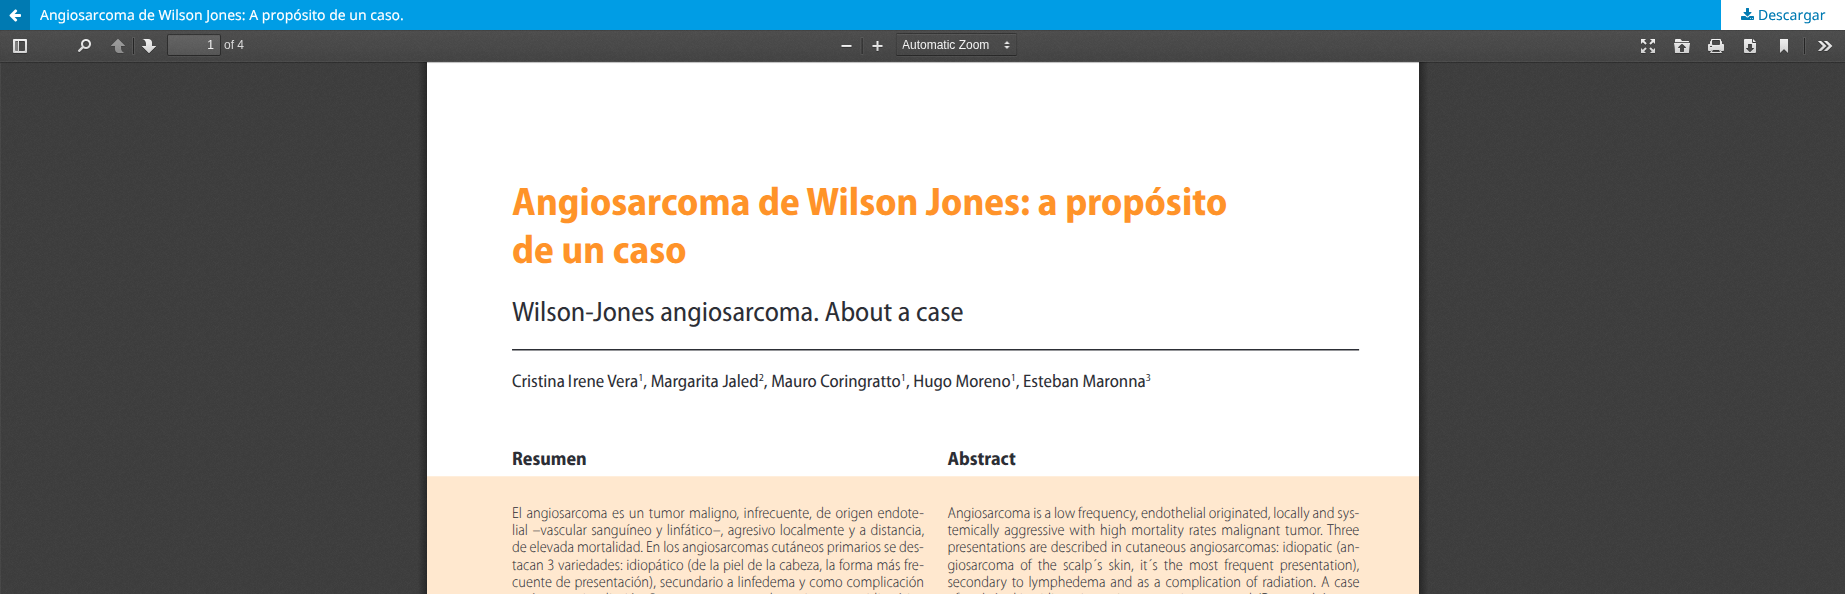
static SkFont makeFont(const char* family, int weight, float size, bool italic = false) {
  SkFontStyle style(weight, SkFontStyle::kNormal_Width,
    italic ? SkFontStyle::kItalic_Slant : SkFontStyle::kUpright_Slant);
  SkFont result(fontMgr->matchFamilyStyle(family, style), size);
  result.setSubpixel(true);
  return result;
}

static void text(SkCanvas* c, const char* s, float x, float y, const SkFont& font, SkColor color) {
  SkPaint ink(SkColor4f::FromColor(color));
  ink.setAntiAlias(true);
  c->drawString(s, x, y, font, ink);
}

static void box(SkCanvas* c, float l, float t, float r, float b, SkColor color) {
  SkPaint ink(SkColor4f::FromColor(color));
  ink.setAntiAlias(true);
  c->drawRect(SkRect::MakeLTRB(l, t, r, b), ink);
}

static void picture(SkCanvas* c, const char* path, float l, float t, float r, float b) {
  auto image = SkImages::DeferredFromEncodedData(SkData::MakeFromFileName(path));
  c->drawImageRect(image, SkRect::MakeLTRB(l, t, r, b), SkSamplingOptions());
}

void draw(SkCanvas* c) {
  SkPaint paint;
  paint.setAntiAlias(true);
  c->clear(0xffffffff);
  box(c, 30, 0, 1721, 30, 0xff009de5);
  box(c, 0, 0, 30, 30, 0xff007ab2);
  picture(c, "img_01.png", 9, 9, 21, 22);
  SkFont face1 = makeFont("Noto Sans", 400, 14);
  text(c, "Angiosarcoma de Wilson Jones: A propósito de un caso.", 40, 20, face1, 0xffffffff);
  picture(c, "img_02.png", 1741, 8, 1754, 20);
  text(c, "Descargar", 1758, 20, face1, 0xff007ab2);
  picture(c, "img_03.png", 0, 30, 1845, 594);
}
